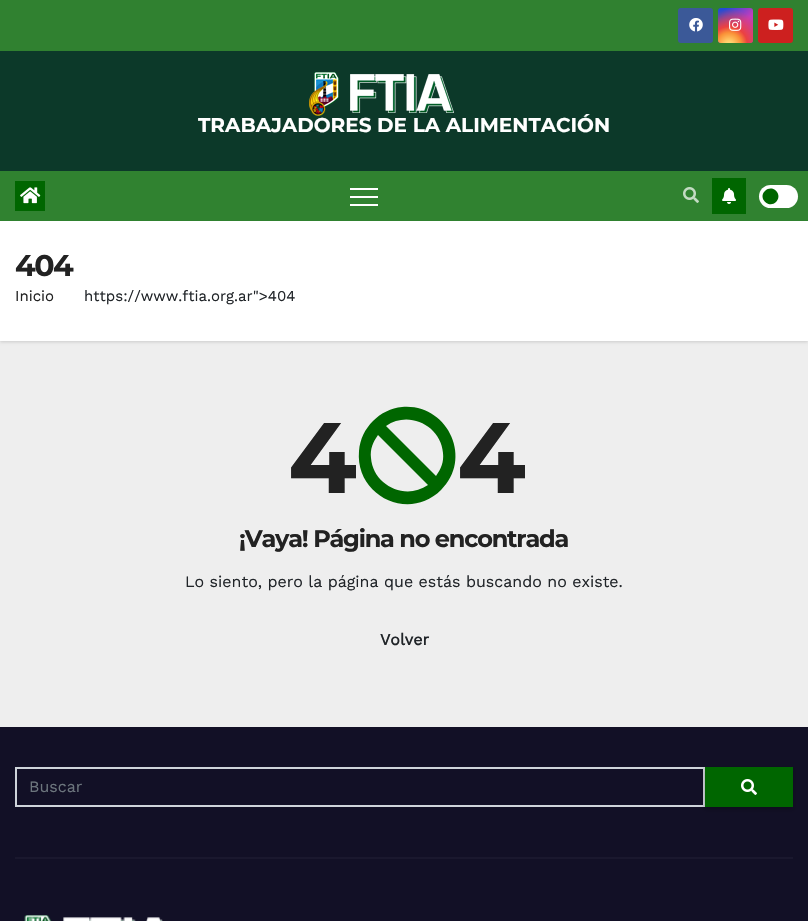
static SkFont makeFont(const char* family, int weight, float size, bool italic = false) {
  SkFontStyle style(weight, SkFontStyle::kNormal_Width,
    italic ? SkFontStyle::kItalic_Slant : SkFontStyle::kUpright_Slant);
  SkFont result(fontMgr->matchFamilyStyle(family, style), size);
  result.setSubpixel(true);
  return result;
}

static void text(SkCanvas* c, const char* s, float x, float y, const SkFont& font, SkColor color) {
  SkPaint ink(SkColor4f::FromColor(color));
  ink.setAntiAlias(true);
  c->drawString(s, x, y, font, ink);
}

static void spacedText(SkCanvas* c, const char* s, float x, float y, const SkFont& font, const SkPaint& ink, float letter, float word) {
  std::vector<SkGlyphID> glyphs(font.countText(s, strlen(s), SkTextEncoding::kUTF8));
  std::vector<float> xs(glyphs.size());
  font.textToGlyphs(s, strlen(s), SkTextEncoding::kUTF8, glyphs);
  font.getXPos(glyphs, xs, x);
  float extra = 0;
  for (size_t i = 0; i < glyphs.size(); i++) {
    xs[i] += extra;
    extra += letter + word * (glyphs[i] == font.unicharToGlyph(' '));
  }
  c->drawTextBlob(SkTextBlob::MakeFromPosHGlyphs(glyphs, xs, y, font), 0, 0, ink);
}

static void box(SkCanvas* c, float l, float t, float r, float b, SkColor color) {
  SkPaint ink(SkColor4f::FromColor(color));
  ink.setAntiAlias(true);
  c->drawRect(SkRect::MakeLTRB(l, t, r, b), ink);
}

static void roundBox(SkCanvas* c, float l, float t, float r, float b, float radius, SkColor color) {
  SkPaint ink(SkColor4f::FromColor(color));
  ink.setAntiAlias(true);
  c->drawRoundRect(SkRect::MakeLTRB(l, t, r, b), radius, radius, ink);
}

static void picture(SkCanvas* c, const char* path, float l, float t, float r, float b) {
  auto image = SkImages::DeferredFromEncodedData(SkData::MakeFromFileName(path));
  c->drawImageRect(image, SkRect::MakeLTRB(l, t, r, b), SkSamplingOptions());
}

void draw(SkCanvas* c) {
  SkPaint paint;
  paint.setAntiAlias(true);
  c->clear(0xffeeeeee);
  box(c, 0, 0, 808, 51, 0xff308130);
  roundBox(c, 678, 8, 713, 43, 3, 0xff3b5998);
  picture(c, "img_01.png", 689, 18, 703, 32);
  {
    const SkColor colors[] = {0xff234bd7, 0xffc33cbe};
    const float stops[] = {0.12f, 0.58f};
    const SkPoint ends[] = {{718, 8}, {753, 43}};
    paint.setShader(SkGradientShader::MakeLinear(ends, colors, stops, 2, SkTileMode::kClamp));
    paint.setAlpha(255);
  }
  c->drawRoundRect(SkRect::MakeLTRB(718, 8, 753, 43), 3, 3, paint);
  {
    const SkColor colors[] = {0xffffe17d, 0xffffcd69, 0xfffa9137, 0xffeb4141, 0x00eb4141};
    const float stops[] = {0, 0.1f, 0.28f, 0.42f, 0.82f};
    paint.setShader(SkGradientShader::MakeRadial({729, 45}, 44, colors, stops, 5, SkTileMode::kClamp));
    paint.setAlpha(255);
  }
  c->drawRoundRect(SkRect::MakeLTRB(718, 8, 753, 43), 3, 3, paint);
  picture(c, "img_02.png", 729, 18, 742, 31);
  roundBox(c, 758, 8, 793, 43, 3, 0xffcd201f);
  picture(c, "img_03.png", 768, 19, 784, 30);
  box(c, 0, 51, 808, 171, 0xff0c3929);
  picture(c, "img_04.png", 309, 72, 454, 116);
  SkFont face1 = makeFont("Montserrat", 700, 20);
  text(c, "TRABAJADORES DE LA ALIMENTACIÓN", 198, 132, face1, 0xffffffff);
  paint.setShader(nullptr);
  paint.setColor(0x26000000);
  paint.setMaskFilter(SkMaskFilter::MakeBlur(kNormal_SkBlurStyle, 1.5f));
  c->drawRect(SkRect::MakeLTRB(0, 222, 808, 342), paint);
  paint.setMaskFilter(nullptr);
  box(c, 0, 171, 808, 221, 0xcc006600);
  box(c, 15, 181, 45, 211, 0xff006600);
  picture(c, "img_05.png", 20, 187, 41, 204);
  box(c, 350, 188, 378, 190, 0xffffffff);
  box(c, 350, 196, 378, 198, 0xffffffff);
  box(c, 350, 204, 378, 206, 0xffffffff);
  picture(c, "img_06.png", 683, 187, 699, 203);
  box(c, 712, 178, 746, 214, 0xff006600);
  picture(c, "img_07.png", 722, 188, 736, 204);
  roundBox(c, 759, 185, 798, 208, 11.5f, 0xffffffff);
  paint.setColor(0xff006600);
  c->drawPath(SkPathBuilder().moveTo(765, 191).cubicTo(772.5f, 183.5f, 783.5f, 194.5f, 776, 202).cubicTo(769, 209, 757.5f, 198, 765, 191).close().detach(), paint);
  box(c, 0, 221, 808, 341, 0xffffffff);
  SkFont face2 = makeFont("Montserrat", 700, 30);
  paint.setColor(0xff222222);
  spacedText(c, "404", 15, 276, face2, paint, -1.5f, 0);
  SkFont face3 = makeFont("Work Sans", 400, 15);
  text(c, "Inicio", 15, 301, face3, 0xff222222);
  text(c, "https://www.ftia.org.ar\">404", 84, 301, face3, 0xff212529);
  SkFont face4 = makeFont("Montserrat", 700, 100);
  spacedText(c, "4", 288, 493, face4, paint, -5, 0);
  paint.setColor(0xff006600);
  c->drawPath(SkPathBuilder().moveTo(373, 421).cubicTo(381, 413, 391, 408, 402, 407).cubicTo(447, 403, 474, 458, 441, 490).cubicTo(409, 522, 355, 496, 359, 451).cubicTo(360, 439, 365, 429, 373, 421).close().moveTo(443, 453).cubicTo(441, 426, 409, 410, 386, 426).lineTo(436, 476).cubicTo(441, 469, 444, 462, 443, 453).close().moveTo(371, 458).cubicTo(373, 485, 405, 501, 428, 485).lineTo(378, 435).cubicTo(373, 442, 370, 449, 371, 458).close().detach(), paint);
  paint.setColor(0xff222222);
  spacedText(c, "4", 457, 493, face4, paint, -5, 0);
  SkFont face5 = makeFont("Montserrat", 700, 24);
  spacedText(c, "¡Vaya! Página no encontrada", 239, 547, face5, paint, -1.2f, 0);
  SkFont face6 = makeFont("Work Sans", 400, 16);
  text(c, "Lo siento, pero la página que estás buscando no existe.", 185, 587, face6, 0xff212529);
  SkFont face7 = makeFont("Work Sans", 700, 16);
  text(c, "Volver", 380, 645, face7, 0xff212529);
  box(c, 0, 727, 808, 921, 0xff121026);
  paint.setStyle(SkPaint::kStroke_Style);
  paint.setStrokeWidth(2);
  paint.setColor(0xffced4da);
  c->drawRect(SkRect::MakeLTRB(16, 768, 704, 806), paint);
  text(c, "Buscar", 29, 792, face6, 0xff6c757d);
  paint.setStyle(SkPaint::kFill_Style);
  paint.setColor(0x42000000);
  paint.setMaskFilter(SkMaskFilter::MakeBlur(kNormal_SkBlurStyle, 2.5f));
  c->drawRect(SkRect::MakeLTRB(705, 769, 793, 809), paint);
  paint.setMaskFilter(nullptr);
  box(c, 705, 767, 793, 807, 0xff006600);
  picture(c, "img_08.png", 741, 779, 757, 795);
  box(c, 15, 857, 793, 859, 0xff1a182e);
  picture(c, "img_09.png", 24, 915, 163, 921);
}
